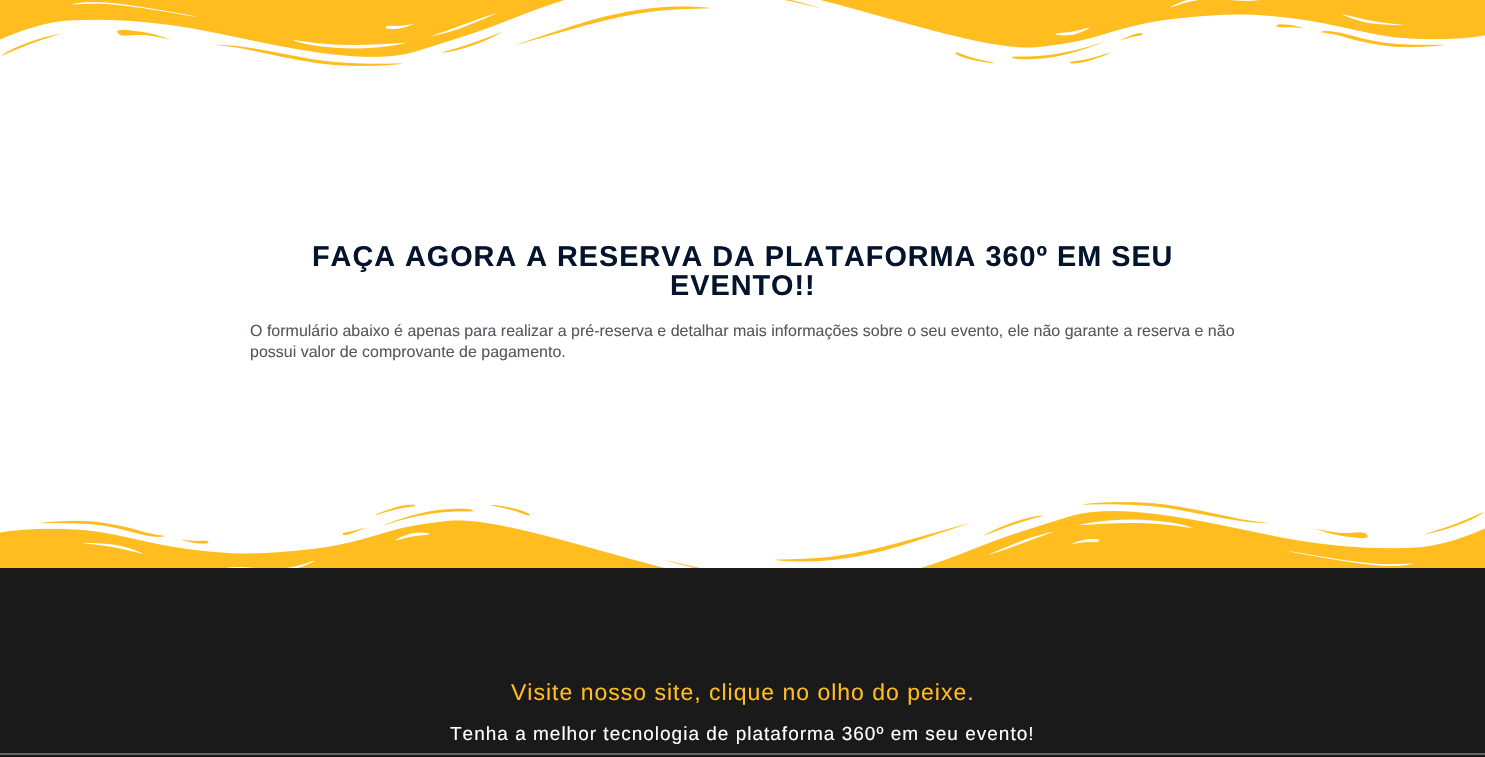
static SkFont makeFont(const char* family, int weight, float size, bool italic = false) {
  SkFontStyle style(weight, SkFontStyle::kNormal_Width,
    italic ? SkFontStyle::kItalic_Slant : SkFontStyle::kUpright_Slant);
  SkFont result(fontMgr->matchFamilyStyle(family, style), size);
  result.setSubpixel(true);
  return result;
}

static void text(SkCanvas* c, const char* s, float x, float y, const SkFont& font, SkColor color) {
  SkPaint ink(SkColor4f::FromColor(color));
  ink.setAntiAlias(true);
  c->drawString(s, x, y, font, ink);
}

static void spacedText(SkCanvas* c, const char* s, float x, float y, const SkFont& font, const SkPaint& ink, float letter, float word) {
  std::vector<SkGlyphID> glyphs(font.countText(s, strlen(s), SkTextEncoding::kUTF8));
  std::vector<float> xs(glyphs.size());
  font.textToGlyphs(s, strlen(s), SkTextEncoding::kUTF8, glyphs);
  font.getXPos(glyphs, xs, x);
  float extra = 0;
  for (size_t i = 0; i < glyphs.size(); i++) {
    xs[i] += extra;
    extra += letter + word * (glyphs[i] == font.unicharToGlyph(' '));
  }
  c->drawTextBlob(SkTextBlob::MakeFromPosHGlyphs(glyphs, xs, y, font), 0, 0, ink);
}

static void box(SkCanvas* c, float l, float t, float r, float b, SkColor color) {
  SkPaint ink(SkColor4f::FromColor(color));
  ink.setAntiAlias(true);
  c->drawRect(SkRect::MakeLTRB(l, t, r, b), ink);
}

static void picture(SkCanvas* c, const char* path, float l, float t, float r, float b) {
  auto image = SkImages::DeferredFromEncodedData(SkData::MakeFromFileName(path));
  c->drawImageRect(image, SkRect::MakeLTRB(l, t, r, b), SkSamplingOptions());
}

void draw(SkCanvas* c) {
  SkPaint paint;
  paint.setAntiAlias(true);
  c->clear(0xffffffff);
  box(c, 0, 0, 1485, 66, 0xffffbd1f);
  picture(c, "img_01.png", 0, 0, 1485, 81);
  SkFont face1 = makeFont("Liberation Sans", 700, 28.8f);
  paint.setColor(0xff04142c);
  spacedText(c, "FAÇA AGORA A RESERVA DA PLATAFORMA 360º EM SEU", 312, 266, face1, paint, 1, 0);
  spacedText(c, "EVENTO!!", 670, 295, face1, paint, 1, 0);
  SkFont face2 = makeFont("Liberation Sans", 400, 16);
  text(c, "O formulário abaixo é apenas para realizar a pré-reserva e detalhar mais informações sobre o seu evento, ele não garante a reserva e não", 250, 336, face2, 0xff54595f);
  text(c, "possui valor de comprovante de pagamento.", 250, 357, face2, 0xff54595f);
  box(c, 0, 502, 1485, 568, 0xffffbd1f);
  picture(c, "img_02.png", 0, 487, 1485, 568);
  box(c, 0, 568, 1485, 753, 0xff1a1a1a);
  SkFont face3 = makeFont("Liberation Sans", 400, 23);
  paint.setColor(0xffffbd1f);
  spacedText(c, "Visite nosso site, clique no olho do peixe.", 511, 700, face3, paint, 1, 0);
  SkFont face4 = makeFont("Liberation Sans", 400, 19);
  paint.setColor(0xffffffff);
  spacedText(c, "Tenha a melhor tecnologia de plataforma 360º em seu evento!", 450, 740, face4, paint, 1, 0);
  box(c, 0, 755, 1485, 757, 0xff1a1a1a);
  box(c, 0, 753, 1485, 755, 0xff666666);
}
